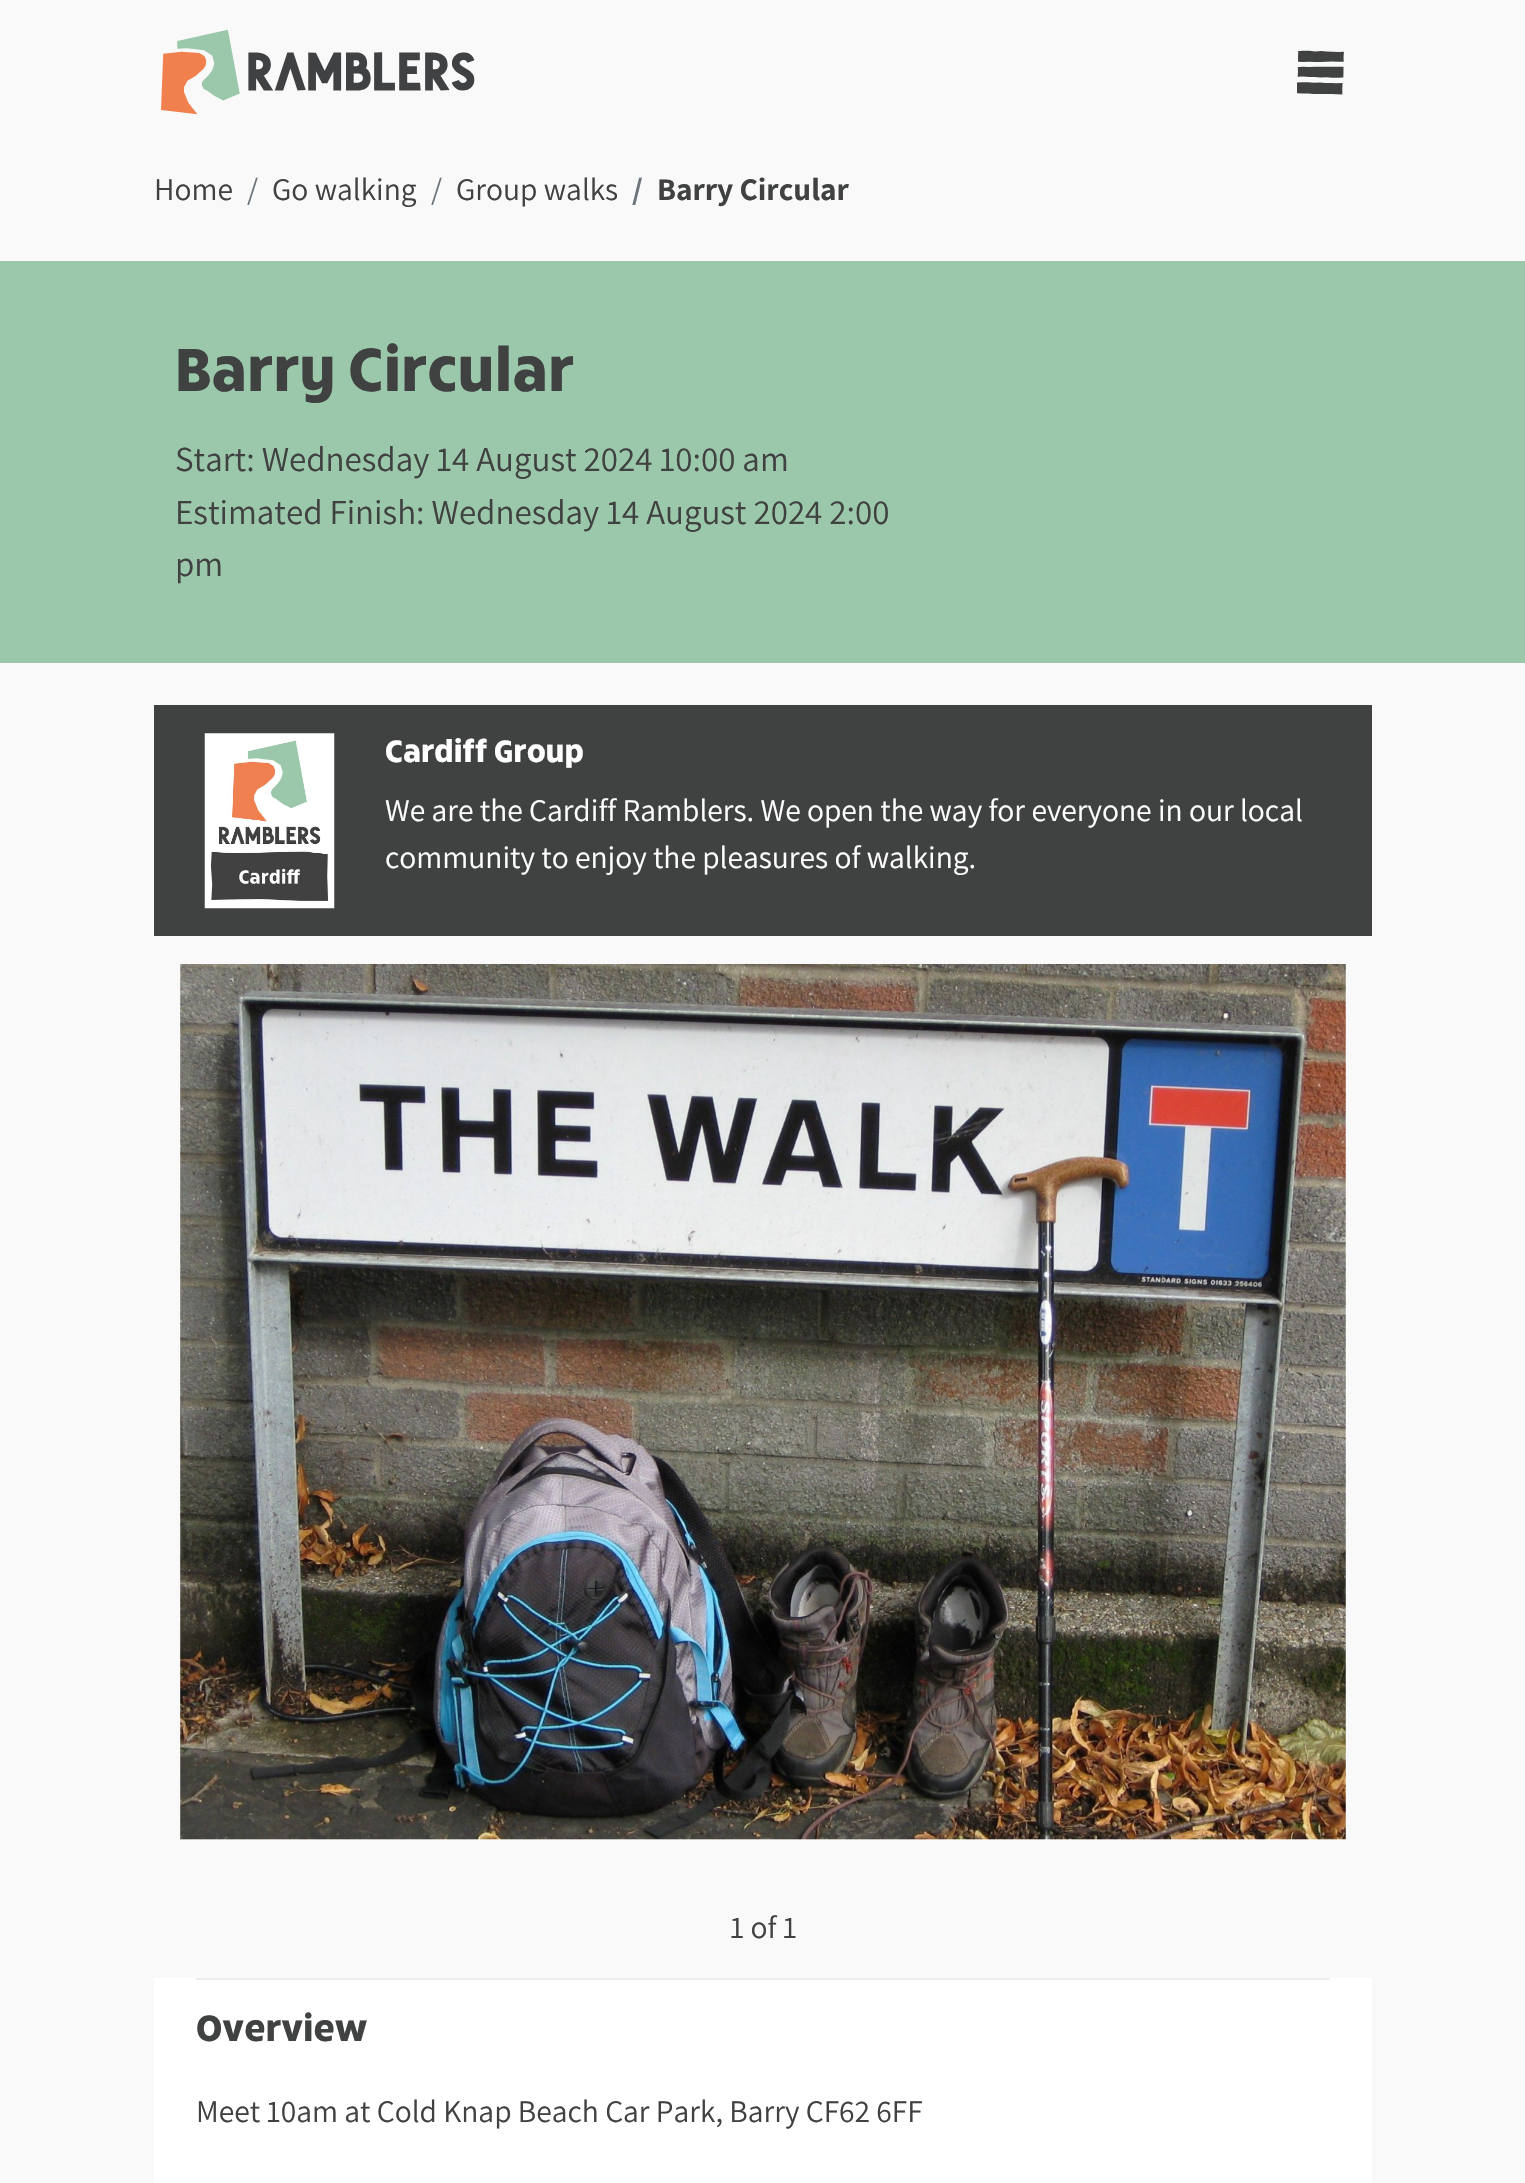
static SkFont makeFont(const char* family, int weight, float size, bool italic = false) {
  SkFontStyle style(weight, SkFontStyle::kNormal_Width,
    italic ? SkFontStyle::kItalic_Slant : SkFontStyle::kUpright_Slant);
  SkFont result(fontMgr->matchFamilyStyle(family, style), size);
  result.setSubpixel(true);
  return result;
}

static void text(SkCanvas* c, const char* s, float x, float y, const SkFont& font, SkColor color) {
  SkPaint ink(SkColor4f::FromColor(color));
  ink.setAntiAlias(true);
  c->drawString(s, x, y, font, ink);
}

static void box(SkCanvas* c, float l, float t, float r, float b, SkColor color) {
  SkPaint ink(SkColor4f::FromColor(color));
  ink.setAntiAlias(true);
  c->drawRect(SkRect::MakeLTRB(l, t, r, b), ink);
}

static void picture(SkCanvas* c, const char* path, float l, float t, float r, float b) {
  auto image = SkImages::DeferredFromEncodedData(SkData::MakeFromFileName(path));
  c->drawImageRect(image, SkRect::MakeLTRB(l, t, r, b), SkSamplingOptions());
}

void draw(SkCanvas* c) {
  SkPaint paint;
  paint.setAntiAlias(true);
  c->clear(0xfff9f9f9);
  picture(c, "img_01.png", 161, 30, 475, 115);
  picture(c, "img_02.png", 1297, 50, 1344, 95);
  SkFont face1 = makeFont("Assistant", 200, 31.5f);
  text(c, "Home", 154, 200, face1, 0xff404141);
  text(c, "/", 247, 200, face1, 0xff6c757d);
  text(c, "Go walking", 272, 200, face1, 0xff404141);
  text(c, "/", 431, 200, face1, 0xff6c757d);
  text(c, "Group walks", 456, 200, face1, 0xff404141);
  SkFont face2 = makeFont("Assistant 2", 200, 31.5f);
  text(c, "/", 632, 200, face2, 0xff6c757d);
  text(c, "Barry Circular", 657, 200, face2, 0xff404141);
  box(c, 0, 261, 1525, 663, 0xff9bc8ab);
  SkFont face3 = makeFont("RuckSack", 700, 62.25f);
  text(c, "Barry Circular", 175, 391, face3, 0xff404141);
  SkFont face4 = makeFont("Assistant", 200, 35);
  text(c, "Start: Wednesday 14 August 2024 10:00 am", 175, 471, face4, 0xff404141);
  text(c, "Estimated Finish: Wednesday 14 August 2024 2:00", 175, 524, face4, 0xff404141);
  text(c, "pm", 175, 576, face4, 0xff404141);
  box(c, 154, 705, 1372, 936, 0xff404141);
  picture(c, "img_03.png", 204, 733, 335, 909);
  SkFont face5 = makeFont("RuckSack", 700, 31.5f);
  text(c, "Cardiff Group", 385, 762, face5, 0xffffffff);
  text(c, "We are the Cardiff Ramblers. We open the way for everyone in our local", 385, 821, face1, 0xffffffff);
  text(c, "community to enjoy the pleasures of walking.", 385, 868, face1, 0xffffffff);
  picture(c, "img_04.png", 180, 964, 1346, 1840);
  text(c, "1 of 1", 730, 1938, face1, 0xff404141);
  box(c, 154, 1978, 1372, 2183, 0xffffffff);
  box(c, 196, 1978, 1330, 1980, 0xffeeeeee);
  SkFont face6 = makeFont("RuckSack", 700, 37.5f);
  text(c, "Overview", 196, 2041, face6, 0xff404141);
  text(c, "Meet 10am at Cold Knap Beach Car Park, Barry CF62 6FF", 196, 2122, face1, 0xff404141);
}
